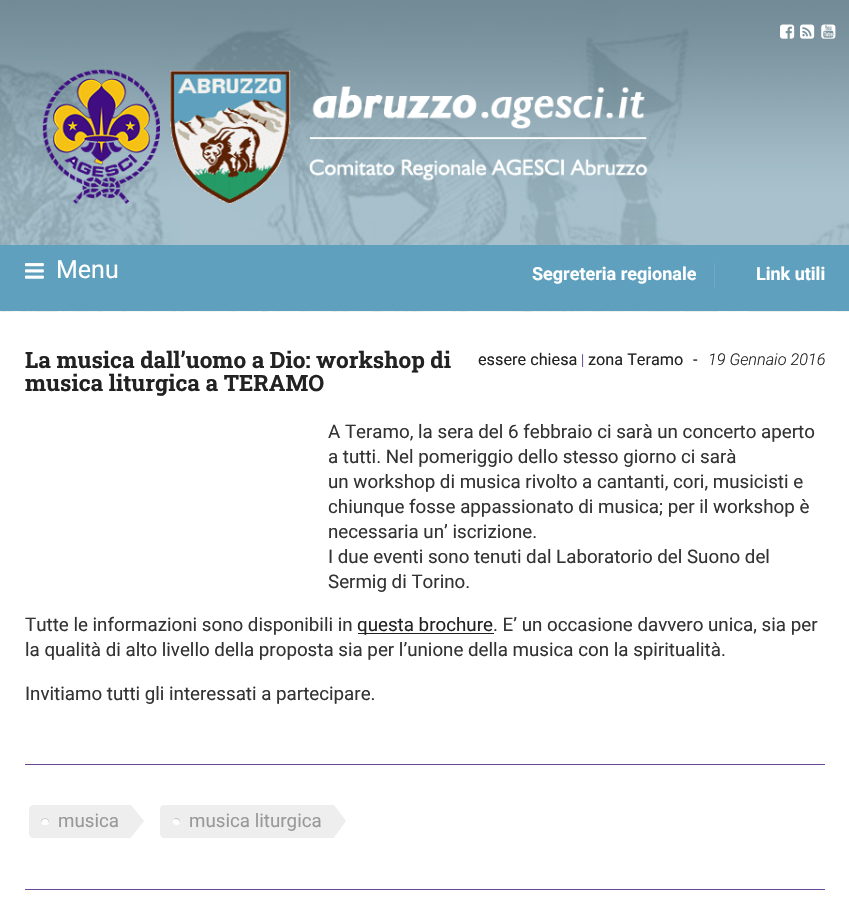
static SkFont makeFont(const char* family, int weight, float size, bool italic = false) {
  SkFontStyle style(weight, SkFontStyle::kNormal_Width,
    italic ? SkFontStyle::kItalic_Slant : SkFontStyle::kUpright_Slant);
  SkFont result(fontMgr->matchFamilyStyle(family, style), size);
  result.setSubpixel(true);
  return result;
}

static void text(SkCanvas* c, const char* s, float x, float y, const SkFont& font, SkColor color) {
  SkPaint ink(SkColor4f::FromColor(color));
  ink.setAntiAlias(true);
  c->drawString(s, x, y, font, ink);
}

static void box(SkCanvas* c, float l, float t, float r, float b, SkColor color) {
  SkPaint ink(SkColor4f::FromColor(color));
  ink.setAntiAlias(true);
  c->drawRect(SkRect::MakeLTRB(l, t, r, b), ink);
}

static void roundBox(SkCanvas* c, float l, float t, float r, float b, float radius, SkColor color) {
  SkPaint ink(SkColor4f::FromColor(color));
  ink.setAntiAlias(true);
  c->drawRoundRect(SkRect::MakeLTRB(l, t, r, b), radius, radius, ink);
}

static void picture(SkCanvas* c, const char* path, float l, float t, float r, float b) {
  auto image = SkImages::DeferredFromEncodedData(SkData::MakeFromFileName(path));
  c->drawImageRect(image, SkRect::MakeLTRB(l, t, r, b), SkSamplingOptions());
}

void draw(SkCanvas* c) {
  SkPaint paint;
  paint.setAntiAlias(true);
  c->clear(0xffffffff);
  picture(c, "img_01.png", 0, 0, 849, 312);
  picture(c, "img_02.png", 780, 24, 795, 39);
  picture(c, "img_03.png", 800, 24, 815, 39);
  picture(c, "img_04.png", 821, 24, 836, 39);
  picture(c, "img_05.png", 42, 69, 648, 204);
  box(c, 0, 245, 849, 311, 0xff5ea0bd);
  picture(c, "img_06.png", 25, 263, 44, 279);
  SkFont face1 = makeFont("Roboto", 400, 25);
  text(c, "Menu", 56, 278, face1, 0xffffffff);
  SkFont face2 = makeFont("Roboto", 700, 18);
  text(c, "Segreteria regionale", 532, 280, face2, 0xffffffff);
  box(c, 714, 263, 715, 288, 0xff6eaac4);
  text(c, "Link utili", 756, 280, face2, 0xffffffff);
  SkFont face3 = makeFont("Roboto Slab", 700, 22.5f);
  text(c, "La musica dall’uomo a Dio: workshop di", 25, 368, face3, 0xff222222);
  text(c, "musica liturgica a TERAMO", 25, 391, face3, 0xff222222);
  SkFont face4 = makeFont("Roboto", 400, 16.25f);
  text(c, "essere chiesa", 478, 365, face4, 0xff222222);
  SkFont face5 = makeFont("Roboto", 300, 15);
  text(c, "|", 581, 365, face5, 0xff46277a);
  text(c, "zona Teramo", 588, 365, face4, 0xff222222);
  text(c, "-", 693, 365, face4, 0xff222222);
  SkFont face6 = makeFont("Roboto", 300, 16.25f, true);
  text(c, "19 Gennaio 2016", 708, 365, face6, 0xff222222);
  SkFont face7 = makeFont("Roboto", 400, 18.75f);
  text(c, "A Teramo, la sera del 6 febbraio ci sarà un concerto aperto", 328, 438, face7, 0xff333333);
  text(c, "a tutti. Nel pomeriggio dello stesso giorno ci sarà", 328, 463, face7, 0xff333333);
  text(c, "un workshop di musica rivolto a cantanti, cori, musicisti e", 328, 488, face7, 0xff333333);
  text(c, "chiunque fosse appassionato di musica; per il workshop è", 328, 513, face7, 0xff333333);
  text(c, "necessaria un’ iscrizione.", 328, 538, face7, 0xff333333);
  text(c, "I due eventi sono tenuti dal Laboratorio del Suono del", 328, 563, face7, 0xff333333);
  text(c, "Sermig di Torino.", 328, 588, face7, 0xff333333);
  text(c, "Tutte le informazioni sono disponibili in", 25, 631, face7, 0xff333333);
  box(c, 358, 633, 494, 634, 0xff222222);
  text(c, "questa brochure", 357, 631, face7, 0xff222222);
  text(c, ". E’ un occasione davvero unica, sia per", 493, 631, face7, 0xff333333);
  text(c, "la qualità di alto livello della proposta sia per l’unione della musica con la spiritualità.", 25, 656, face7, 0xff333333);
  text(c, "Invitiamo tutti gli interessati a partecipare.", 25, 700, face7, 0xff333333);
  box(c, 25, 764, 825, 765, 0xff6c4796);
  paint.setColor(0xffeeeeee);
  c->drawPath(SkPathBuilder().moveTo(33, 805).lineTo(144, 805).lineTo(144, 838).lineTo(33, 838).cubicTo(31, 838, 29, 836, 29, 834).lineTo(29, 809).cubicTo(29, 807, 31, 805, 33, 805).close().detach(), paint);
  roundBox(c, 41, 818, 49, 825, 3.5f, 0xffffffff);
  paint.setColor(0x40000000);
  c->drawPath(SkPathBuilder().moveTo(45, 819).cubicTo(47.5f, 819, 49, 821, 48.5f, 823).cubicTo(51.5f, 816.5f, 38.5f, 816.5f, 41.5f, 823).cubicTo(41, 821, 42.5f, 819, 45, 819).close().detach(), paint);
  text(c, "musica", 58, 827, face7, 0xff999999);
  box(c, 131, 805, 144, 838, 0xffffffff);
  paint.setColor(0xffeeeeee);
  c->drawPath(SkPathBuilder().moveTo(131, 837.5f).lineTo(131, 805).lineTo(144, 821).close().detach(), paint);
  c->drawPath(SkPathBuilder().moveTo(164, 805).lineTo(346, 805).lineTo(346, 838).lineTo(164, 838).cubicTo(162, 838, 160, 836, 160, 834).lineTo(160, 809).cubicTo(160, 807, 162, 805, 164, 805).close().detach(), paint);
  paint.setColor(0xffffffff);
  c->drawCircle(176.5f, 821.5f, 3.5f, paint);
  paint.setColor(0x40000000);
  c->drawPath(SkPathBuilder().moveTo(176, 819).cubicTo(178.5f, 819, 180, 821, 179.5f, 823).cubicTo(181.5f, 819, 175.5f, 816, 173.5f, 820).cubicTo(174, 819.5f, 175, 819, 176, 819).close().detach(), paint);
  text(c, "musica liturgica", 189, 827, face7, 0xff999999);
  box(c, 334, 805, 346, 838, 0xffffffff);
  paint.setColor(0xffeeeeee);
  c->drawPath(SkPathBuilder().moveTo(334, 837.5f).lineTo(334, 805).lineTo(346, 821).close().detach(), paint);
  box(c, 25, 889, 825, 890, 0xff6c4796);
}
